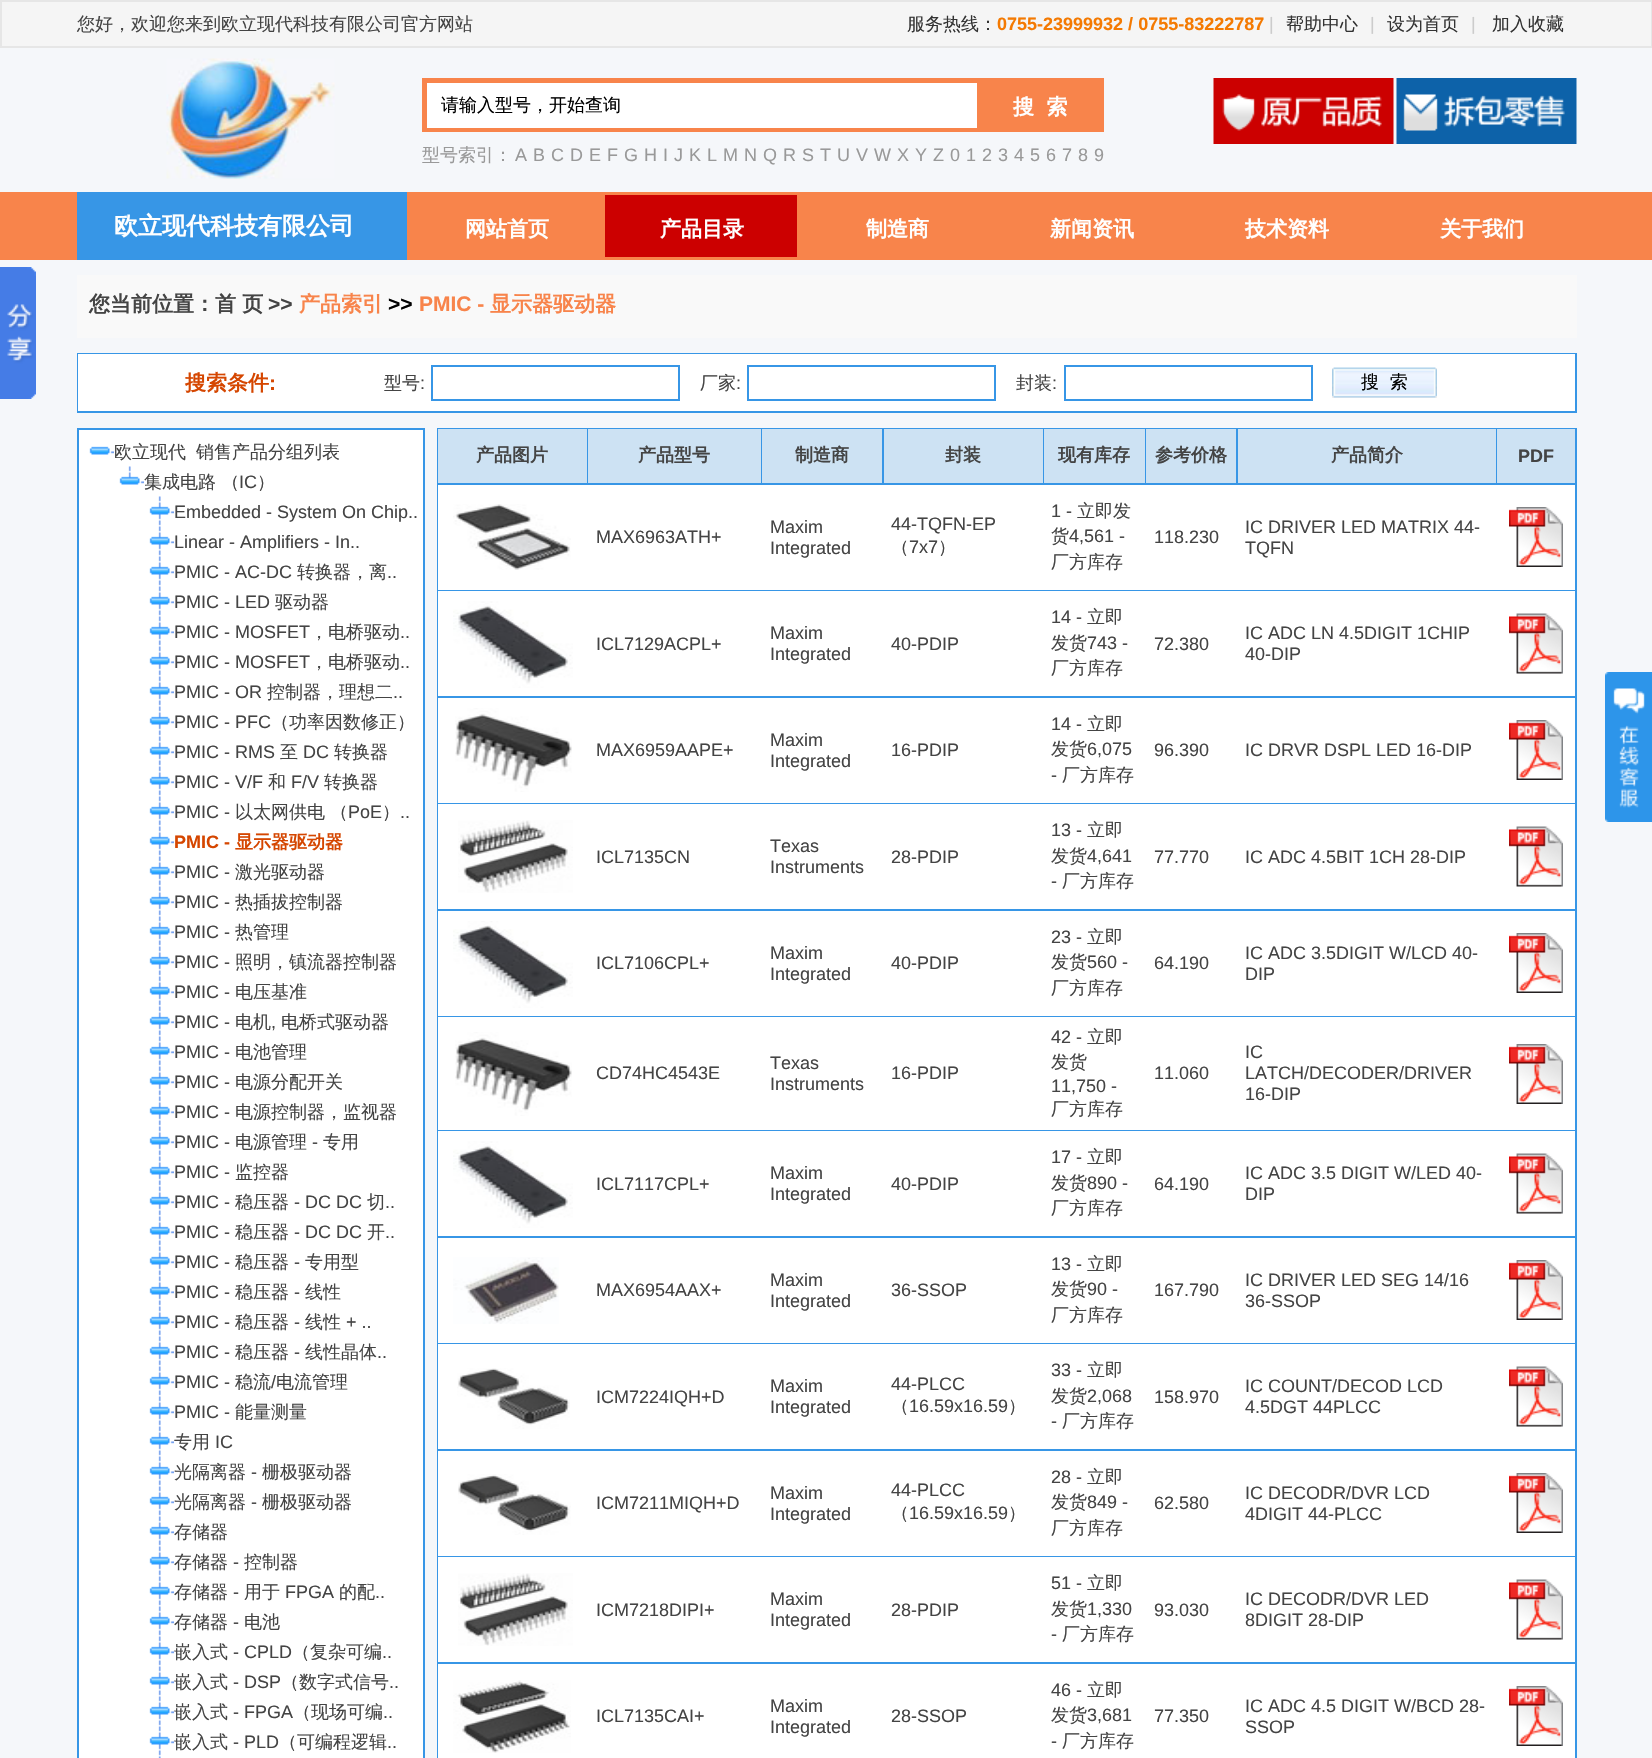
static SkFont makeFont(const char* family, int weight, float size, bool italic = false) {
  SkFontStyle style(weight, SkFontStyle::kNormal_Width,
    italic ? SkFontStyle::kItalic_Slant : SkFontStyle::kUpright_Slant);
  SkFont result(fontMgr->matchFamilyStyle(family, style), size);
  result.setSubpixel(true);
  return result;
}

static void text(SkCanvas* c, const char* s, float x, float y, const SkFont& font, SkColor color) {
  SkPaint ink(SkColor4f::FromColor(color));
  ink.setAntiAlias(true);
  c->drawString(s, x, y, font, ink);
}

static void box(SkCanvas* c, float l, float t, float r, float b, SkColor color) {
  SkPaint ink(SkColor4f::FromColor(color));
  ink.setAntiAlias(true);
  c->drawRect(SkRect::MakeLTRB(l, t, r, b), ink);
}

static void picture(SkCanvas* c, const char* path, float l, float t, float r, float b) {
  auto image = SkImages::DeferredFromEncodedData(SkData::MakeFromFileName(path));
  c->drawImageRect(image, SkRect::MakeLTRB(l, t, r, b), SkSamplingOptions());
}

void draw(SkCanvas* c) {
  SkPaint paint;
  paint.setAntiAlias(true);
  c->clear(0xfff5f7fa);
  picture(c, "img_01.png", 0, 267, 36, 399);
  paint.setColor(0xfff5f5f5);
  c->drawRect(SkRect::MakeLTRB(1, 1, 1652, 47), paint);
  paint.setStyle(SkPaint::kStroke_Style);
  paint.setStrokeWidth(2);
  paint.setColor(0xffe6e6e6);
  c->drawRect(SkRect::MakeLTRB(1, 1, 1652, 47), paint);
  SkFont face1 = makeFont("WenQuanYi Zen Hei", 500, 18);
  text(c, "您好，欢迎您来到欧立现代科技有限公司官方网站", 77, 30, face1, 0xff444444);
  text(c, "服务热线：", 907, 30, face1, 0xff333333);
  SkFont face2 = makeFont("Liberation Sans", 700, 18);
  text(c, "0755-23999932 / 0755-83222787", 997, 30, face2, 0xfff47a02);
  SkFont face3 = makeFont("Liberation Sans", 400, 18);
  text(c, "|", 1269, 30, face3, 0xffcccccc);
  text(c, "帮助中心", 1286, 30, face1, 0xff333333);
  text(c, "|", 1370, 30, face3, 0xffcccccc);
  text(c, "设为首页", 1387, 30, face1, 0xff333333);
  text(c, "|", 1471, 30, face3, 0xffcccccc);
  text(c, "加入收藏", 1492, 30, face1, 0xff333333);
  picture(c, "img_02.png", 166, 58, 335, 179);
  box(c, 427, 83, 977, 128, 0xffffffff);
  box(c, 422, 78, 977, 83, 0xfff8844b);
  box(c, 422, 128, 977, 132, 0xfff8844b);
  box(c, 422, 78, 427, 132, 0xfff8844b);
  text(c, "请输入型号，开始查询", 441, 111, face1, 0xff000000);
  box(c, 977, 78, 1104, 132, 0xfff8844b);
  SkFont face4 = makeFont("WenQuanYi Zen Hei", 700, 21);
  text(c, "搜  索", 1013, 114, face4, 0xffffffff);
  text(c, "型号索引：", 422, 161, face1, 0xff999999);
  text(c, "A", 515, 161, face3, 0xff999999);
  text(c, "B", 533, 161, face3, 0xff999999);
  text(c, "C", 551, 161, face3, 0xff999999);
  text(c, "D", 570, 161, face3, 0xff999999);
  text(c, "E", 589, 161, face3, 0xff999999);
  text(c, "F", 607, 161, face3, 0xff999999);
  text(c, "G", 624, 161, face3, 0xff999999);
  text(c, "H", 644, 161, face3, 0xff999999);
  text(c, "I", 663, 161, face3, 0xff999999);
  text(c, "J", 674, 161, face3, 0xff999999);
  text(c, "K", 689, 161, face3, 0xff999999);
  text(c, "L", 707, 161, face3, 0xff999999);
  text(c, "M", 723, 161, face3, 0xff999999);
  text(c, "N", 744, 161, face3, 0xff999999);
  text(c, "Q", 763, 161, face3, 0xff999999);
  text(c, "R", 783, 161, face3, 0xff999999);
  text(c, "S", 802, 161, face3, 0xff999999);
  text(c, "T", 820, 161, face3, 0xff999999);
  text(c, "U", 837, 161, face3, 0xff999999);
  text(c, "V", 856, 161, face3, 0xff999999);
  text(c, "W", 874, 161, face3, 0xff999999);
  text(c, "X", 897, 161, face3, 0xff999999);
  text(c, "Y", 915, 161, face3, 0xff999999);
  text(c, "Z", 933, 161, face3, 0xff999999);
  text(c, "0", 950, 161, face3, 0xff999999);
  text(c, "1", 966, 161, face3, 0xff999999);
  text(c, "2", 982, 161, face3, 0xff999999);
  text(c, "3", 998, 161, face3, 0xff999999);
  text(c, "4", 1014, 161, face3, 0xff999999);
  text(c, "5", 1030, 161, face3, 0xff999999);
  text(c, "6", 1046, 161, face3, 0xff999999);
  text(c, "7", 1062, 161, face3, 0xff999999);
  text(c, "8", 1078, 161, face3, 0xff999999);
  text(c, "9", 1094, 161, face3, 0xff999999);
  picture(c, "img_03.png", 1213, 78, 1394, 144);
  picture(c, "img_04.png", 1396, 78, 1577, 144);
  box(c, 0, 192, 1652, 260, 0xfff8844b);
  box(c, 77, 192, 407, 260, 0xff3796e6);
  SkFont face5 = makeFont("WenQuanYi Zen Hei", 700, 24);
  text(c, "欧立现代科技有限公司", 114, 234, face5, 0xffffffff);
  text(c, "网站首页", 465, 236, face4, 0xffffffff);
  box(c, 605, 195, 797, 257, 0xffcc0000);
  text(c, "产品目录", 660, 236, face4, 0xffffffff);
  text(c, "制造商", 866, 236, face4, 0xffffffff);
  text(c, "新闻资讯", 1050, 236, face4, 0xffffffff);
  text(c, "技术资料", 1245, 236, face4, 0xffffffff);
  text(c, "关于我们", 1440, 236, face4, 0xffffffff);
  box(c, 77, 275, 1577, 338, 0xfff9f9f9);
  text(c, "您当前位置：", 89, 311, face4, 0xff444444);
  text(c, "首 页", 215, 311, face4, 0xff444444);
  SkFont face6 = makeFont("Liberation Sans", 700, 21);
  text(c, ">>", 268, 311, face6, 0xff444444);
  text(c, "产品索引", 299, 311, face4, 0xfff8844b);
  text(c, ">>", 388, 311, face6, 0xff000000);
  text(c, "PMIC -", 419, 311, face6, 0xfff8844b);
  text(c, "显示器驱动器", 490, 311, face4, 0xfff8844b);
  paint.setColor(0xff3796e6);
  c->drawRect(SkRect::MakeLTRB(78, 354, 1576, 412), paint);
  box(c, 78, 354, 1575, 411, 0xffffffff);
  text(c, "搜索条件", 185, 390, face4, 0xffd54600);
  text(c, ":", 269, 390, face6, 0xffd54600);
  text(c, "型号", 384, 389, face1, 0xff444444);
  text(c, ":", 420, 389, face3, 0xff444444);
  c->drawRect(SkRect::MakeLTRB(432, 366, 679, 400), paint);
  text(c, "厂家", 700, 389, face1, 0xff444444);
  text(c, ":", 736, 389, face3, 0xff444444);
  c->drawRect(SkRect::MakeLTRB(748, 366, 995, 400), paint);
  text(c, "封装", 1016, 389, face1, 0xff444444);
  text(c, ":", 1052, 389, face3, 0xff444444);
  c->drawRect(SkRect::MakeLTRB(1065, 366, 1312, 400), paint);
  box(c, 1332, 368, 1437, 398, 0xffefefef);
  picture(c, "img_05.png", 1332, 367, 1437, 398);
  text(c, "搜  索", 1361, 388, face1, 0xff000000);
  paint.setStyle(SkPaint::kFill_Style);
  paint.setColor(0xffffffff);
  c->drawRect(SkRect::MakeLTRB(78, 429, 424, 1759), paint);
  paint.setStyle(SkPaint::kStroke_Style);
  paint.setColor(0xff3796e6);
  c->drawRect(SkRect::MakeLTRB(78, 429, 424, 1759), paint);
  picture(c, "img_06.png", 89, 446, 114, 455);
  text(c, "欧立现代", 114, 458, face1, 0xff444444);
  text(c, "销售产品分组列表", 196, 458, face1, 0xff444444);
  picture(c, "img_07.png", 119, 466, 144, 485);
  text(c, "集成电路 （", 144, 488, face1, 0xff444444);
  text(c, "IC", 239, 488, face3, 0xff444444);
  text(c, "）", 257, 488, face1, 0xff444444);
  picture(c, "img_08.png", 149, 496, 174, 526);
  text(c, "Embedded - System On Chip..", 174, 518, face3, 0xff444444);
  picture(c, "img_08.png", 149, 526, 174, 556);
  text(c, "Linear - Amplifiers - In..", 174, 548, face3, 0xff444444);
  picture(c, "img_08.png", 149, 556, 174, 586);
  text(c, "PMIC - AC-DC", 174, 578, face3, 0xff444444);
  text(c, "转换器，离", 297, 578, face1, 0xff444444);
  text(c, "..", 387, 578, face3, 0xff444444);
  picture(c, "img_08.png", 149, 586, 174, 616);
  text(c, "PMIC - LED", 174, 608, face3, 0xff444444);
  text(c, "驱动器", 275, 608, face1, 0xff444444);
  picture(c, "img_08.png", 149, 616, 174, 646);
  text(c, "PMIC - MOSFET", 174, 638, face3, 0xff444444);
  text(c, "，电桥驱动", 310, 638, face1, 0xff444444);
  text(c, "..", 400, 638, face3, 0xff444444);
  picture(c, "img_08.png", 149, 646, 174, 676);
  text(c, "PMIC - MOSFET", 174, 668, face3, 0xff444444);
  text(c, "，电桥驱动", 310, 668, face1, 0xff444444);
  text(c, "..", 400, 668, face3, 0xff444444);
  picture(c, "img_08.png", 149, 676, 174, 706);
  text(c, "PMIC - OR", 174, 698, face3, 0xff444444);
  text(c, "控制器，理想二", 267, 698, face1, 0xff444444);
  text(c, "..", 393, 698, face3, 0xff444444);
  picture(c, "img_08.png", 149, 706, 174, 736);
  text(c, "PMIC - PFC", 174, 728, face3, 0xff444444);
  text(c, "（功率因数修正）", 271, 728, face1, 0xff444444);
  picture(c, "img_08.png", 149, 736, 174, 766);
  text(c, "PMIC - RMS", 174, 758, face3, 0xff444444);
  text(c, "至", 280, 758, face1, 0xff444444);
  text(c, "DC", 303, 758, face3, 0xff444444);
  text(c, "转换器", 334, 758, face1, 0xff444444);
  picture(c, "img_08.png", 149, 766, 174, 796);
  text(c, "PMIC - V/F", 174, 788, face3, 0xff444444);
  text(c, "和", 268, 788, face1, 0xff444444);
  text(c, "F/V", 291, 788, face3, 0xff444444);
  text(c, "转换器", 324, 788, face1, 0xff444444);
  picture(c, "img_08.png", 149, 796, 174, 826);
  text(c, "PMIC -", 174, 818, face3, 0xff444444);
  text(c, "以太网供电", 235, 818, face1, 0xff444444);
  text(c, "（", 330, 818, face1, 0xff444444);
  text(c, "PoE", 348, 818, face3, 0xff444444);
  text(c, "）", 382, 818, face1, 0xff444444);
  text(c, "..", 400, 818, face3, 0xff444444);
  picture(c, "img_08.png", 149, 826, 174, 856);
  text(c, "PMIC -", 174, 848, face2, 0xffd54600);
  SkFont face7 = makeFont("WenQuanYi Zen Hei", 700, 18);
  text(c, "显示器驱动器", 235, 848, face7, 0xffd54600);
  picture(c, "img_08.png", 149, 856, 174, 886);
  text(c, "PMIC -", 174, 878, face3, 0xff444444);
  text(c, "激光驱动器", 235, 878, face1, 0xff444444);
  picture(c, "img_08.png", 149, 886, 174, 916);
  text(c, "PMIC -", 174, 908, face3, 0xff444444);
  text(c, "热插拔控制器", 235, 908, face1, 0xff444444);
  picture(c, "img_08.png", 149, 916, 174, 946);
  text(c, "PMIC -", 174, 938, face3, 0xff444444);
  text(c, "热管理", 235, 938, face1, 0xff444444);
  picture(c, "img_08.png", 149, 946, 174, 976);
  text(c, "PMIC -", 174, 968, face3, 0xff444444);
  text(c, "照明，镇流器控制器", 235, 968, face1, 0xff444444);
  picture(c, "img_08.png", 149, 976, 174, 1006);
  text(c, "PMIC -", 174, 998, face3, 0xff444444);
  text(c, "电压基准", 235, 998, face1, 0xff444444);
  picture(c, "img_08.png", 149, 1006, 174, 1036);
  text(c, "PMIC -", 174, 1028, face3, 0xff444444);
  text(c, "电机", 235, 1028, face1, 0xff444444);
  text(c, ",", 271, 1028, face3, 0xff444444);
  text(c, "电桥式驱动器", 281, 1028, face1, 0xff444444);
  picture(c, "img_08.png", 149, 1036, 174, 1066);
  text(c, "PMIC -", 174, 1058, face3, 0xff444444);
  text(c, "电池管理", 235, 1058, face1, 0xff444444);
  picture(c, "img_08.png", 149, 1066, 174, 1096);
  text(c, "PMIC -", 174, 1088, face3, 0xff444444);
  text(c, "电源分配开关", 235, 1088, face1, 0xff444444);
  picture(c, "img_08.png", 149, 1096, 174, 1126);
  text(c, "PMIC -", 174, 1118, face3, 0xff444444);
  text(c, "电源控制器，监视器", 235, 1118, face1, 0xff444444);
  picture(c, "img_08.png", 149, 1126, 174, 1156);
  text(c, "PMIC -", 174, 1148, face3, 0xff444444);
  text(c, "电源管理", 235, 1148, face1, 0xff444444);
  text(c, "-", 312, 1148, face3, 0xff444444);
  text(c, "专用", 323, 1148, face1, 0xff444444);
  picture(c, "img_08.png", 149, 1156, 174, 1186);
  text(c, "PMIC -", 174, 1178, face3, 0xff444444);
  text(c, "监控器", 235, 1178, face1, 0xff444444);
  picture(c, "img_08.png", 149, 1186, 174, 1216);
  text(c, "PMIC -", 174, 1208, face3, 0xff444444);
  text(c, "稳压器", 235, 1208, face1, 0xff444444);
  text(c, "- DC DC", 294, 1208, face3, 0xff444444);
  text(c, "切", 367, 1208, face1, 0xff444444);
  text(c, "..", 385, 1208, face3, 0xff444444);
  picture(c, "img_08.png", 149, 1216, 174, 1246);
  text(c, "PMIC -", 174, 1238, face3, 0xff444444);
  text(c, "稳压器", 235, 1238, face1, 0xff444444);
  text(c, "- DC DC", 294, 1238, face3, 0xff444444);
  text(c, "开", 367, 1238, face1, 0xff444444);
  text(c, "..", 385, 1238, face3, 0xff444444);
  picture(c, "img_08.png", 149, 1246, 174, 1276);
  text(c, "PMIC -", 174, 1268, face3, 0xff444444);
  text(c, "稳压器", 235, 1268, face1, 0xff444444);
  text(c, "-", 294, 1268, face3, 0xff444444);
  text(c, "专用型", 305, 1268, face1, 0xff444444);
  picture(c, "img_08.png", 149, 1276, 174, 1306);
  text(c, "PMIC -", 174, 1298, face3, 0xff444444);
  text(c, "稳压器", 235, 1298, face1, 0xff444444);
  text(c, "-", 294, 1298, face3, 0xff444444);
  text(c, "线性", 305, 1298, face1, 0xff444444);
  picture(c, "img_08.png", 149, 1306, 174, 1336);
  text(c, "PMIC -", 174, 1328, face3, 0xff444444);
  text(c, "稳压器", 235, 1328, face1, 0xff444444);
  text(c, "-", 294, 1328, face3, 0xff444444);
  text(c, "线性", 305, 1328, face1, 0xff444444);
  text(c, "+ ..", 346, 1328, face3, 0xff444444);
  picture(c, "img_08.png", 149, 1336, 174, 1366);
  text(c, "PMIC -", 174, 1358, face3, 0xff444444);
  text(c, "稳压器", 235, 1358, face1, 0xff444444);
  text(c, "-", 294, 1358, face3, 0xff444444);
  text(c, "线性晶体", 305, 1358, face1, 0xff444444);
  text(c, "..", 377, 1358, face3, 0xff444444);
  picture(c, "img_08.png", 149, 1366, 174, 1396);
  text(c, "PMIC -", 174, 1388, face3, 0xff444444);
  text(c, "稳流", 235, 1388, face1, 0xff444444);
  text(c, "/", 271, 1388, face3, 0xff444444);
  text(c, "电流管理", 276, 1388, face1, 0xff444444);
  picture(c, "img_08.png", 149, 1396, 174, 1426);
  text(c, "PMIC -", 174, 1418, face3, 0xff444444);
  text(c, "能量测量", 235, 1418, face1, 0xff444444);
  picture(c, "img_08.png", 149, 1426, 174, 1456);
  text(c, "专用", 174, 1448, face1, 0xff444444);
  text(c, "IC", 215, 1448, face3, 0xff444444);
  picture(c, "img_08.png", 149, 1456, 174, 1486);
  text(c, "光隔离器", 174, 1478, face1, 0xff444444);
  text(c, "-", 251, 1478, face3, 0xff444444);
  text(c, "栅极驱动器", 262, 1478, face1, 0xff444444);
  picture(c, "img_08.png", 149, 1486, 174, 1516);
  text(c, "光隔离器", 174, 1508, face1, 0xff444444);
  text(c, "-", 251, 1508, face3, 0xff444444);
  text(c, "栅极驱动器", 262, 1508, face1, 0xff444444);
  picture(c, "img_08.png", 149, 1516, 174, 1546);
  text(c, "存储器", 174, 1538, face1, 0xff444444);
  picture(c, "img_08.png", 149, 1546, 174, 1576);
  text(c, "存储器", 174, 1568, face1, 0xff444444);
  text(c, "-", 233, 1568, face3, 0xff444444);
  text(c, "控制器", 244, 1568, face1, 0xff444444);
  picture(c, "img_08.png", 149, 1576, 174, 1606);
  text(c, "存储器", 174, 1598, face1, 0xff444444);
  text(c, "-", 233, 1598, face3, 0xff444444);
  text(c, "用于", 244, 1598, face1, 0xff444444);
  text(c, "FPGA", 285, 1598, face3, 0xff444444);
  text(c, "的配", 339, 1598, face1, 0xff444444);
  text(c, "..", 375, 1598, face3, 0xff444444);
  picture(c, "img_08.png", 149, 1606, 174, 1636);
  text(c, "存储器", 174, 1628, face1, 0xff444444);
  text(c, "-", 233, 1628, face3, 0xff444444);
  text(c, "电池", 244, 1628, face1, 0xff444444);
  picture(c, "img_08.png", 149, 1636, 174, 1666);
  text(c, "嵌入式", 174, 1658, face1, 0xff444444);
  text(c, "- CPLD", 233, 1658, face3, 0xff444444);
  text(c, "（复杂可编", 292, 1658, face1, 0xff444444);
  text(c, "..", 382, 1658, face3, 0xff444444);
  picture(c, "img_08.png", 149, 1666, 174, 1696);
  text(c, "嵌入式", 174, 1688, face1, 0xff444444);
  text(c, "- DSP", 233, 1688, face3, 0xff444444);
  text(c, "（数字式信号", 281, 1688, face1, 0xff444444);
  text(c, "..", 389, 1688, face3, 0xff444444);
  picture(c, "img_08.png", 149, 1696, 174, 1726);
  text(c, "嵌入式", 174, 1718, face1, 0xff444444);
  text(c, "- FPGA", 233, 1718, face3, 0xff444444);
  text(c, "（现场可编", 293, 1718, face1, 0xff444444);
  text(c, "..", 383, 1718, face3, 0xff444444);
  picture(c, "img_08.png", 149, 1726, 174, 1756);
  text(c, "嵌入式", 174, 1748, face1, 0xff444444);
  text(c, "- PLD", 233, 1748, face3, 0xff444444);
  text(c, "（可编程逻辑", 279, 1748, face1, 0xff444444);
  text(c, "..", 387, 1748, face3, 0xff444444);
  picture(c, "img_09.png", 158, 1756, 161, 1758);
  box(c, 437, 428, 1577, 1758, 0xff3796e6);
  box(c, 438, 429, 587, 483, 0xffcde2f3);
  text(c, "产品图片", 476, 461, face7, 0xff444444);
  box(c, 588, 429, 761, 483, 0xffcde2f3);
  text(c, "产品型号", 638, 461, face7, 0xff444444);
  box(c, 762, 429, 882, 483, 0xffcde2f3);
  text(c, "制造商", 795, 461, face7, 0xff444444);
  box(c, 884, 429, 1043, 483, 0xffcde2f3);
  text(c, "封装", 945, 461, face7, 0xff444444);
  box(c, 1044, 429, 1145, 483, 0xffcde2f3);
  text(c, "现有库存", 1058, 461, face7, 0xff444444);
  box(c, 1146, 429, 1236, 483, 0xffcde2f3);
  text(c, "参考价格", 1155, 461, face7, 0xff444444);
  box(c, 1238, 429, 1496, 483, 0xffcde2f3);
  text(c, "产品简介", 1331, 461, face7, 0xff444444);
  box(c, 1497, 429, 1575, 483, 0xffcde2f3);
  text(c, "PDF", 1518, 462, face2, 0xff444444);
  box(c, 438, 485, 1575, 590, 0xffffffff);
  picture(c, "img_10.png", 453, 504, 571, 570);
  text(c, "MAX6963ATH+", 596, 543, face3, 0xff444444);
  text(c, "Maxim", 770, 533, face3, 0xff444444);
  text(c, "Integrated", 770, 554, face3, 0xff444444);
  text(c, "44-TQFN-EP", 891, 530, face3, 0xff444444);
  text(c, "（", 891, 553, face1, 0xff444444);
  text(c, "7x7", 909, 553, face3, 0xff444444);
  text(c, "）", 938, 553, face1, 0xff444444);
  text(c, "1 -", 1051, 517, face3, 0xff444444);
  text(c, "立即发", 1077, 517, face1, 0xff444444);
  text(c, "货", 1051, 542, face1, 0xff444444);
  text(c, "4,561 -", 1069, 542, face3, 0xff444444);
  text(c, "厂方库存", 1051, 568, face1, 0xff444444);
  text(c, "118.230", 1154, 543, face3, 0xff444444);
  text(c, "IC DRIVER LED MATRIX 44-", 1245, 533, face3, 0xff444444);
  text(c, "TQFN", 1245, 554, face3, 0xff444444);
  picture(c, "img_11.png", 1509, 507, 1563, 567);
  box(c, 438, 591, 1575, 696, 0xffffffff);
  picture(c, "img_12.png", 453, 601, 573, 688);
  text(c, "ICL7129ACPL+", 596, 650, face3, 0xff444444);
  text(c, "Maxim", 770, 639, face3, 0xff444444);
  text(c, "Integrated", 770, 660, face3, 0xff444444);
  text(c, "40-PDIP", 891, 650, face3, 0xff444444);
  text(c, "14 -", 1051, 623, face3, 0xff444444);
  text(c, "立即", 1087, 623, face1, 0xff444444);
  text(c, "发货", 1051, 649, face1, 0xff444444);
  text(c, "743 -", 1087, 649, face3, 0xff444444);
  text(c, "厂方库存", 1051, 674, face1, 0xff444444);
  text(c, "72.380", 1154, 650, face3, 0xff444444);
  text(c, "IC ADC LN 4.5DIGIT 1CHIP", 1245, 639, face3, 0xff444444);
  text(c, "40-DIP", 1245, 660, face3, 0xff444444);
  picture(c, "img_13.png", 1509, 613, 1563, 674);
  box(c, 438, 698, 1575, 803, 0xffffffff);
  picture(c, "img_14.png", 455, 708, 572, 792);
  text(c, "MAX6959AAPE+", 596, 756, face3, 0xff444444);
  text(c, "Maxim", 770, 746, face3, 0xff444444);
  text(c, "Integrated", 770, 767, face3, 0xff444444);
  text(c, "16-PDIP", 891, 756, face3, 0xff444444);
  text(c, "14 -", 1051, 730, face3, 0xff444444);
  text(c, "立即", 1087, 730, face1, 0xff444444);
  text(c, "发货", 1051, 755, face1, 0xff444444);
  text(c, "6,075", 1087, 755, face3, 0xff444444);
  text(c, "-", 1051, 781, face3, 0xff444444);
  text(c, "厂方库存", 1062, 781, face1, 0xff444444);
  text(c, "96.390", 1154, 756, face3, 0xff444444);
  text(c, "IC DRVR DSPL LED 16-DIP", 1245, 756, face3, 0xff444444);
  picture(c, "img_11.png", 1509, 720, 1563, 780);
  box(c, 438, 804, 1575, 909, 0xffffffff);
  picture(c, "img_15.png", 458, 820, 573, 893);
  text(c, "ICL7135CN", 596, 863, face3, 0xff444444);
  text(c, "Texas", 770, 852, face3, 0xff444444);
  text(c, "Instruments", 770, 873, face3, 0xff444444);
  text(c, "28-PDIP", 891, 863, face3, 0xff444444);
  text(c, "13 -", 1051, 836, face3, 0xff444444);
  text(c, "立即", 1087, 836, face1, 0xff444444);
  text(c, "发货", 1051, 862, face1, 0xff444444);
  text(c, "4,641", 1087, 862, face3, 0xff444444);
  text(c, "-", 1051, 887, face3, 0xff444444);
  text(c, "厂方库存", 1062, 887, face1, 0xff444444);
  text(c, "77.770", 1154, 863, face3, 0xff444444);
  text(c, "IC ADC 4.5BIT 1CH 28-DIP", 1245, 863, face3, 0xff444444);
  picture(c, "img_13.png", 1509, 826, 1563, 887);
  box(c, 438, 911, 1575, 1016, 0xffffffff);
  picture(c, "img_16.png", 453, 921, 573, 1008);
  text(c, "ICL7106CPL+", 596, 969, face3, 0xff444444);
  text(c, "Maxim", 770, 959, face3, 0xff444444);
  text(c, "Integrated", 770, 980, face3, 0xff444444);
  text(c, "40-PDIP", 891, 969, face3, 0xff444444);
  text(c, "23 -", 1051, 943, face3, 0xff444444);
  text(c, "立即", 1087, 943, face1, 0xff444444);
  text(c, "发货", 1051, 968, face1, 0xff444444);
  text(c, "560 -", 1087, 968, face3, 0xff444444);
  text(c, "厂方库存", 1051, 994, face1, 0xff444444);
  text(c, "64.190", 1154, 969, face3, 0xff444444);
  text(c, "IC ADC 3.5DIGIT W/LCD 40-", 1245, 959, face3, 0xff444444);
  text(c, "DIP", 1245, 980, face3, 0xff444444);
  picture(c, "img_11.png", 1509, 933, 1563, 993);
  box(c, 438, 1017, 1575, 1130, 0xffffffff);
  picture(c, "img_14.png", 455, 1032, 572, 1116);
  text(c, "CD74HC4543E", 596, 1079, face3, 0xff444444);
  text(c, "Texas", 770, 1069, face3, 0xff444444);
  text(c, "Instruments", 770, 1090, face3, 0xff444444);
  text(c, "16-PDIP", 891, 1079, face3, 0xff444444);
  text(c, "42 -", 1051, 1043, face3, 0xff444444);
  text(c, "立即", 1087, 1043, face1, 0xff444444);
  text(c, "发货", 1051, 1068, face1, 0xff444444);
  text(c, "11,750 -", 1051, 1092, face3, 0xff444444);
  text(c, "厂方库存", 1051, 1115, face1, 0xff444444);
  text(c, "11.060", 1154, 1079, face3, 0xff444444);
  text(c, "IC", 1245, 1058, face3, 0xff444444);
  text(c, "LATCH/DECODER/DRIVER", 1245, 1079, face3, 0xff444444);
  text(c, "16-DIP", 1245, 1100, face3, 0xff444444);
  picture(c, "img_11.png", 1509, 1044, 1563, 1104);
  box(c, 438, 1131, 1575, 1236, 0xffffffff);
  picture(c, "img_12.png", 453, 1141, 573, 1228);
  text(c, "ICL7117CPL+", 596, 1190, face3, 0xff444444);
  text(c, "Maxim", 770, 1179, face3, 0xff444444);
  text(c, "Integrated", 770, 1200, face3, 0xff444444);
  text(c, "40-PDIP", 891, 1190, face3, 0xff444444);
  text(c, "17 -", 1051, 1163, face3, 0xff444444);
  text(c, "立即", 1087, 1163, face1, 0xff444444);
  text(c, "发货", 1051, 1189, face1, 0xff444444);
  text(c, "890 -", 1087, 1189, face3, 0xff444444);
  text(c, "厂方库存", 1051, 1214, face1, 0xff444444);
  text(c, "64.190", 1154, 1190, face3, 0xff444444);
  text(c, "IC ADC 3.5 DIGIT W/LED 40-", 1245, 1179, face3, 0xff444444);
  text(c, "DIP", 1245, 1200, face3, 0xff444444);
  picture(c, "img_13.png", 1509, 1153, 1563, 1214);
  box(c, 438, 1238, 1575, 1343, 0xffffffff);
  picture(c, "img_17.png", 453, 1257, 559, 1324);
  text(c, "MAX6954AAX+", 596, 1296, face3, 0xff444444);
  text(c, "Maxim", 770, 1286, face3, 0xff444444);
  text(c, "Integrated", 770, 1307, face3, 0xff444444);
  text(c, "36-SSOP", 891, 1296, face3, 0xff444444);
  text(c, "13 -", 1051, 1270, face3, 0xff444444);
  text(c, "立即", 1087, 1270, face1, 0xff444444);
  text(c, "发货", 1051, 1295, face1, 0xff444444);
  text(c, "90 -", 1087, 1295, face3, 0xff444444);
  text(c, "厂方库存", 1051, 1321, face1, 0xff444444);
  text(c, "167.790", 1154, 1296, face3, 0xff444444);
  text(c, "IC DRIVER LED SEG 14/16", 1245, 1286, face3, 0xff444444);
  text(c, "36-SSOP", 1245, 1307, face3, 0xff444444);
  picture(c, "img_11.png", 1509, 1260, 1563, 1320);
  box(c, 438, 1344, 1575, 1449, 0xffffffff);
  picture(c, "img_18.png", 457, 1368, 570, 1429);
  text(c, "ICM7224IQH+D", 596, 1403, face3, 0xff444444);
  text(c, "Maxim", 770, 1392, face3, 0xff444444);
  text(c, "Integrated", 770, 1413, face3, 0xff444444);
  text(c, "44-PLCC", 891, 1390, face3, 0xff444444);
  text(c, "（", 891, 1412, face1, 0xff444444);
  text(c, "16.59x16.59", 909, 1412, face3, 0xff444444);
  text(c, "）", 1008, 1412, face1, 0xff444444);
  text(c, "33 -", 1051, 1376, face3, 0xff444444);
  text(c, "立即", 1087, 1376, face1, 0xff444444);
  text(c, "发货", 1051, 1402, face1, 0xff444444);
  text(c, "2,068", 1087, 1402, face3, 0xff444444);
  text(c, "-", 1051, 1427, face3, 0xff444444);
  text(c, "厂方库存", 1062, 1427, face1, 0xff444444);
  text(c, "158.970", 1154, 1403, face3, 0xff444444);
  text(c, "IC COUNT/DECOD LCD", 1245, 1392, face3, 0xff444444);
  text(c, "4.5DGT 44PLCC", 1245, 1413, face3, 0xff444444);
  picture(c, "img_13.png", 1509, 1366, 1563, 1427);
  box(c, 438, 1451, 1575, 1556, 0xffffffff);
  picture(c, "img_19.png", 458, 1474, 571, 1535);
  text(c, "ICM7211MIQH+D", 596, 1509, face3, 0xff444444);
  text(c, "Maxim", 770, 1499, face3, 0xff444444);
  text(c, "Integrated", 770, 1520, face3, 0xff444444);
  text(c, "44-PLCC", 891, 1496, face3, 0xff444444);
  text(c, "（", 891, 1519, face1, 0xff444444);
  text(c, "16.59x16.59", 909, 1519, face3, 0xff444444);
  text(c, "）", 1008, 1519, face1, 0xff444444);
  text(c, "28 -", 1051, 1483, face3, 0xff444444);
  text(c, "立即", 1087, 1483, face1, 0xff444444);
  text(c, "发货", 1051, 1508, face1, 0xff444444);
  text(c, "849 -", 1087, 1508, face3, 0xff444444);
  text(c, "厂方库存", 1051, 1534, face1, 0xff444444);
  text(c, "62.580", 1154, 1509, face3, 0xff444444);
  text(c, "IC DECODR/DVR LCD", 1245, 1499, face3, 0xff444444);
  text(c, "4DIGIT 44-PLCC", 1245, 1520, face3, 0xff444444);
  picture(c, "img_11.png", 1509, 1473, 1563, 1533);
  box(c, 438, 1557, 1575, 1662, 0xffffffff);
  picture(c, "img_15.png", 458, 1573, 573, 1646);
  text(c, "ICM7218DIPI+", 596, 1616, face3, 0xff444444);
  text(c, "Maxim", 770, 1605, face3, 0xff444444);
  text(c, "Integrated", 770, 1626, face3, 0xff444444);
  text(c, "28-PDIP", 891, 1616, face3, 0xff444444);
  text(c, "51 -", 1051, 1589, face3, 0xff444444);
  text(c, "立即", 1087, 1589, face1, 0xff444444);
  text(c, "发货", 1051, 1615, face1, 0xff444444);
  text(c, "1,330", 1087, 1615, face3, 0xff444444);
  text(c, "-", 1051, 1640, face3, 0xff444444);
  text(c, "厂方库存", 1062, 1640, face1, 0xff444444);
  text(c, "93.030", 1154, 1616, face3, 0xff444444);
  text(c, "IC DECODR/DVR LED", 1245, 1605, face3, 0xff444444);
  text(c, "8DIGIT 28-DIP", 1245, 1626, face3, 0xff444444);
  picture(c, "img_13.png", 1509, 1579, 1563, 1640);
  box(c, 438, 1664, 1575, 1758, 0xffffffff);
  picture(c, "img_20.png", 453, 1680, 571, 1753);
  text(c, "ICL7135CAI+", 596, 1722, face3, 0xff444444);
  text(c, "Maxim", 770, 1712, face3, 0xff444444);
  text(c, "Integrated", 770, 1733, face3, 0xff444444);
  text(c, "28-SSOP", 891, 1722, face3, 0xff444444);
  text(c, "46 -", 1051, 1696, face3, 0xff444444);
  text(c, "立即", 1087, 1696, face1, 0xff444444);
  text(c, "发货", 1051, 1721, face1, 0xff444444);
  text(c, "3,681", 1087, 1721, face3, 0xff444444);
  text(c, "-", 1051, 1747, face3, 0xff444444);
  text(c, "厂方库存", 1062, 1747, face1, 0xff444444);
  text(c, "77.350", 1154, 1722, face3, 0xff444444);
  text(c, "IC ADC 4.5 DIGIT W/BCD 28-", 1245, 1712, face3, 0xff444444);
  text(c, "SSOP", 1245, 1733, face3, 0xff444444);
  picture(c, "img_11.png", 1509, 1686, 1563, 1746);
  box(c, 1645, 672, 1652, 822, 0xff2d95ea);
  picture(c, "img_21.png", 1605, 672, 1645, 822);
}
